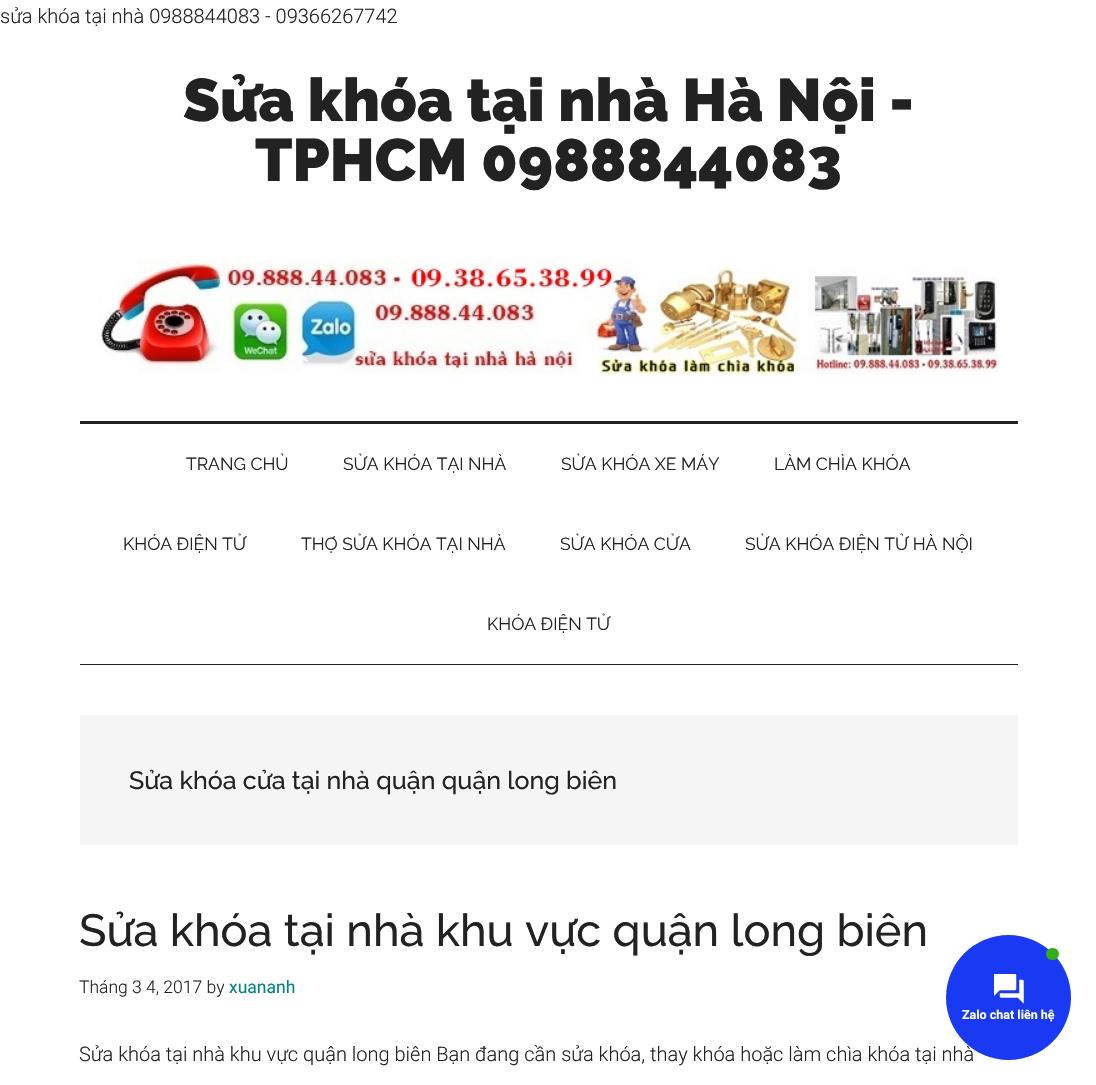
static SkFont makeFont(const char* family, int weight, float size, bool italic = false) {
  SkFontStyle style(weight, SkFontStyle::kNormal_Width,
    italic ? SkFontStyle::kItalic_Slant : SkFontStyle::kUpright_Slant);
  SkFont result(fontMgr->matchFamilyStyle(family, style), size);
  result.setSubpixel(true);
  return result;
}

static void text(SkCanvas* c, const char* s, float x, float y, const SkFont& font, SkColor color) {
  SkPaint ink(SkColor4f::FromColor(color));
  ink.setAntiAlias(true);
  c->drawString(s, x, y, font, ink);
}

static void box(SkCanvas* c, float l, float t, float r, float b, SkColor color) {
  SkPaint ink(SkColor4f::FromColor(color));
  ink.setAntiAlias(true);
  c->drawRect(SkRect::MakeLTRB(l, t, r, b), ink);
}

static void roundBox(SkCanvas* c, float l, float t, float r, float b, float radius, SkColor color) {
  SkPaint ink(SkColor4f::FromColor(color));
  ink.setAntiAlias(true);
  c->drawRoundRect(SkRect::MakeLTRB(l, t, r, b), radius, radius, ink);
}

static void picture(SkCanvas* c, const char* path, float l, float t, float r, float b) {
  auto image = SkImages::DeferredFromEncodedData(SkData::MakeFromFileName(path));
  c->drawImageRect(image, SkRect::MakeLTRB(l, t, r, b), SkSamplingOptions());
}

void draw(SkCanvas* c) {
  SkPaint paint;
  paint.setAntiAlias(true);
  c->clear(0xffffffff);
  SkFont face1 = makeFont("Roboto", 300, 20);
  text(c, "sửa khóa tại nhà 0988844083 - 09366267742", 0, 23, face1, 0xff222222);
  box(c, 80, 421, 1018, 424, 0xff222222);
  SkFont face2 = makeFont("Raleway", 900, 60);
  text(c, "Sửa khóa tại nhà Hà Nội -", 183, 121, face2, 0xff222222);
  text(c, "TPHCM 0988844083", 255, 181, face2, 0xff222222);
  picture(c, "img_01.png", 99, 259, 999, 374);
  box(c, 80, 664, 1018, 665, 0xff222222);
  SkFont face3 = makeFont("Raleway", 400, 17.5f);
  text(c, "TRANG CHỦ", 186, 470, face3, 0xff222222);
  text(c, "SỬA KHÓA TẠI NHÀ", 343, 470, face3, 0xff222222);
  text(c, "SỬA KHÓA XE MÁY", 561, 470, face3, 0xff222222);
  text(c, "LÀM CHÌA KHÓA", 774, 470, face3, 0xff222222);
  text(c, "KHÓA ĐIỆN TỬ", 123, 550, face3, 0xff222222);
  text(c, "THỢ SỬA KHÓA TẠI NHÀ", 301, 550, face3, 0xff222222);
  text(c, "SỬA KHÓA CỬA", 560, 550, face3, 0xff222222);
  text(c, "SỬA KHÓA ĐIỆN TỬ HÀ NỘI", 745, 550, face3, 0xff222222);
  text(c, "KHÓA ĐIỆN TỬ", 487, 630, face3, 0xff222222);
  box(c, 80, 715, 1018, 845, 0xfff5f5f5);
  SkFont face4 = makeFont("Raleway", 500, 25);
  text(c, "Sửa khóa cửa tại nhà quận quận long biên", 129, 789, face4, 0xff222222);
  SkFont face5 = makeFont("Raleway", 500, 45);
  text(c, "Sửa khóa tại nhà khu vực quận long biên", 79, 946, face5, 0xff222222);
  SkFont face6 = makeFont("Roboto", 300, 17.5f);
  text(c, "Tháng 3 4, 2017 by", 79, 993, face6, 0xff222222);
  SkFont face7 = makeFont("Roboto", 400, 17.5f);
  text(c, "xuananh", 229, 993, face7, 0xff008285);
  text(c, "Sửa khóa tại nhà khu vực quận long biên Bạn đang cần sửa khóa, thay khóa hoặc làm chìa khóa tại nhà", 79, 1061, face1, 0xff222222);
  paint.setColor(0xff193af2);
  c->drawCircle(1008.5f, 997.5f, 62.5f, paint);
  roundBox(c, 1046, 948, 1059, 960, 6, 0xff35ac19);
  picture(c, "img_02.png", 994, 974, 1024, 1004);
  SkFont face8 = makeFont("Roboto", 700, 12.5f);
  text(c, "Zalo chat liên hệ", 962, 1019, face8, 0xffffffff);
}
